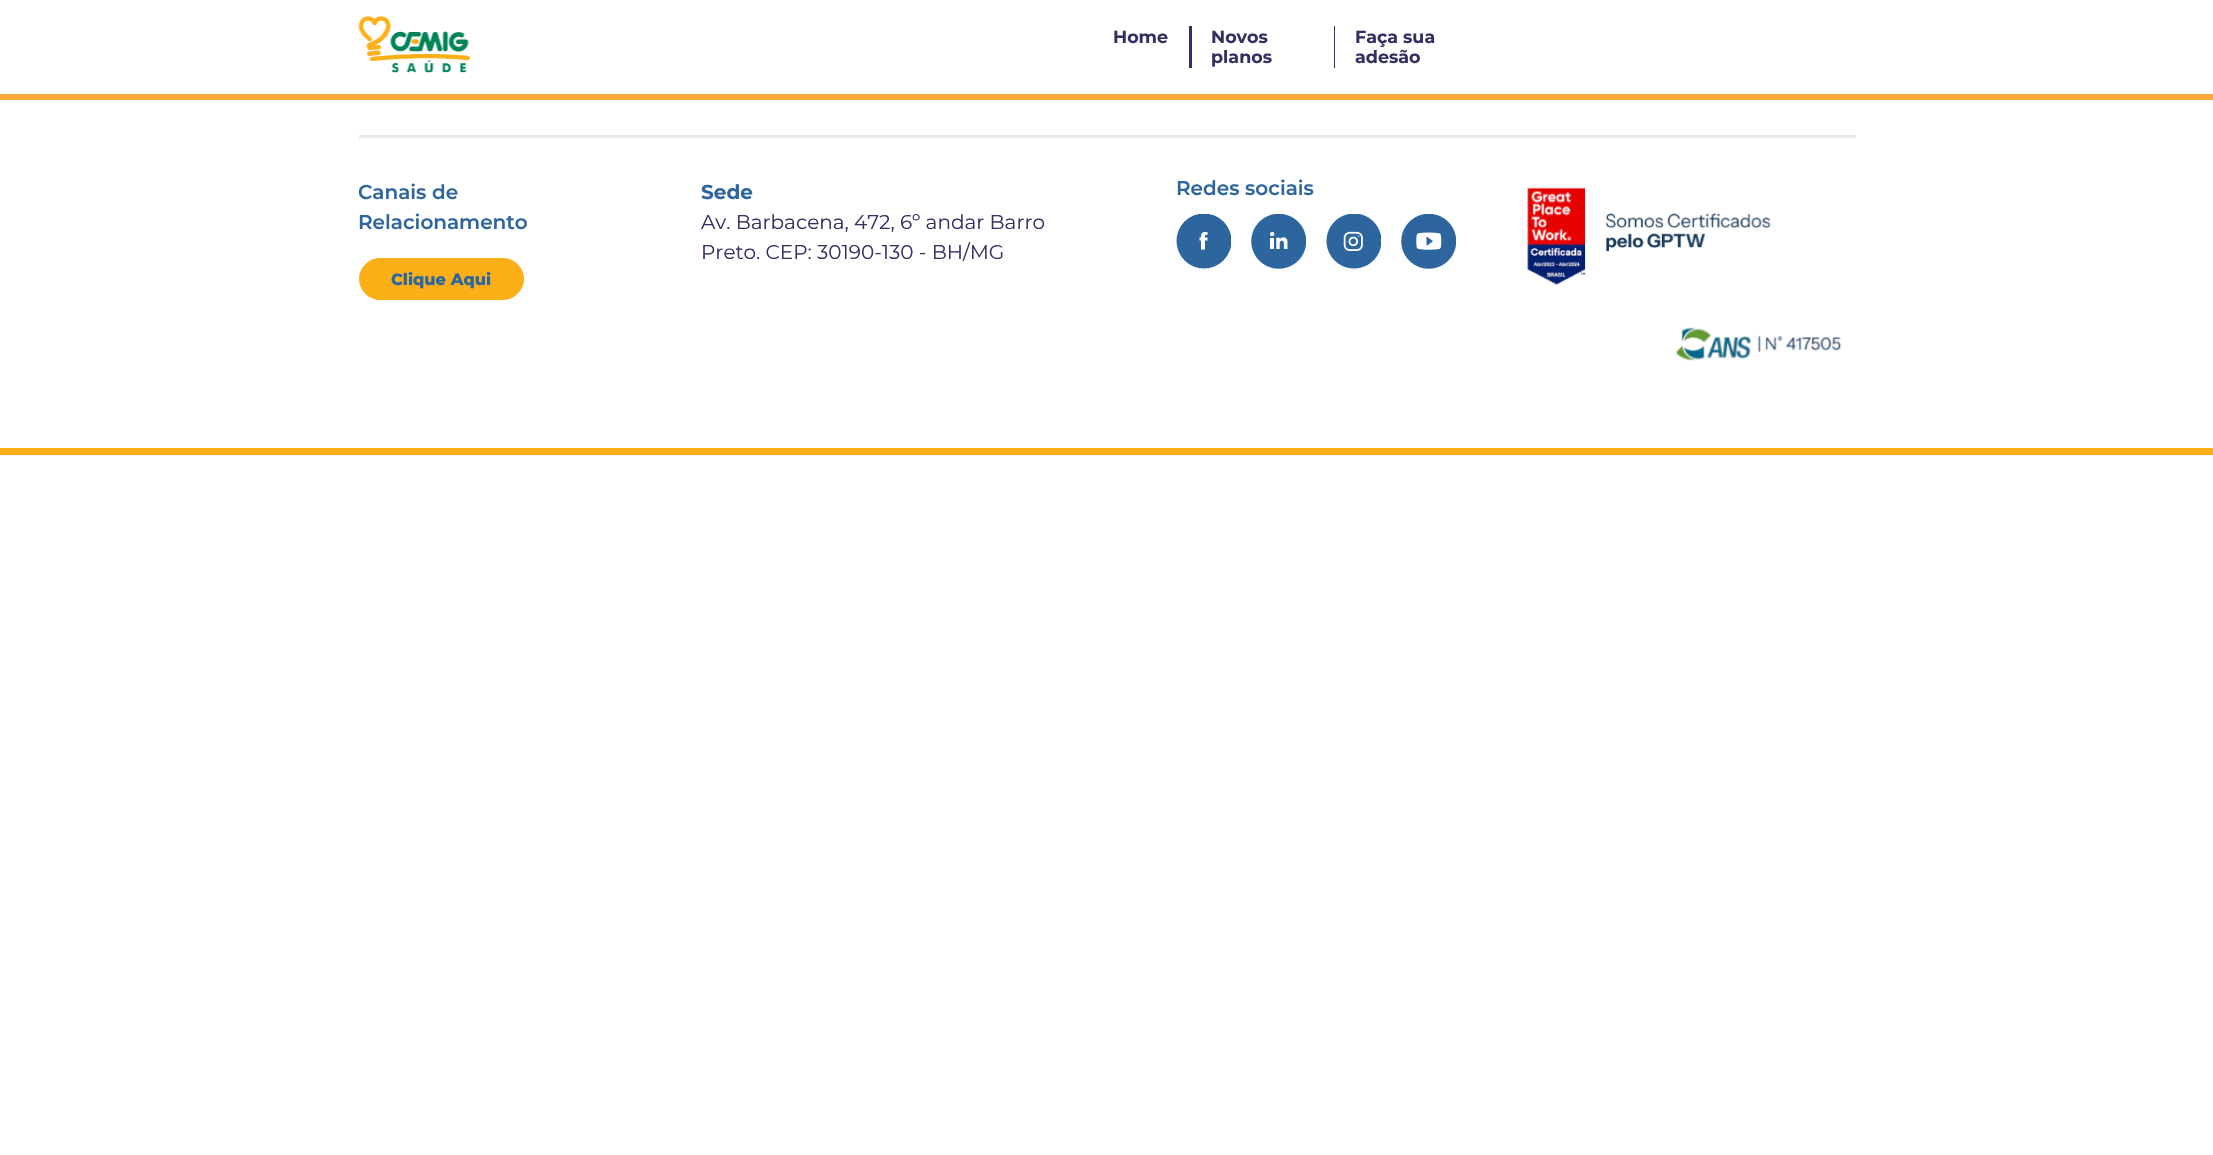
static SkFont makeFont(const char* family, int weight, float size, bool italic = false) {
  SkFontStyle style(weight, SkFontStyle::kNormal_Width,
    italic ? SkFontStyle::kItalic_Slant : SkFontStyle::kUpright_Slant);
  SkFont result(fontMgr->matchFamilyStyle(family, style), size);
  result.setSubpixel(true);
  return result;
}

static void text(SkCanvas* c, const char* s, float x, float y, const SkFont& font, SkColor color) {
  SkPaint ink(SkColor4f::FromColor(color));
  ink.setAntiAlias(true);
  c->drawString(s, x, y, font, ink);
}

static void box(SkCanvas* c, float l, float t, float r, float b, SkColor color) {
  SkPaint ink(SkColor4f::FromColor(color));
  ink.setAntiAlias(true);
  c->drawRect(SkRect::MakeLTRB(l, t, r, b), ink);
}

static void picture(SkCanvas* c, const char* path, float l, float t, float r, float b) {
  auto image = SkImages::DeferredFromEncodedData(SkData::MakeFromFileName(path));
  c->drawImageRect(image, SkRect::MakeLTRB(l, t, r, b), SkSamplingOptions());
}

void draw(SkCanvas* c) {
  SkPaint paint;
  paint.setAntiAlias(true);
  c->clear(0xffffffff);
  box(c, 0, 94, 2213, 100, 0xfffaa83b);
  picture(c, "img_01.png", 358, 16, 471, 73);
  SkFont face1 = makeFont("Montserrat", 700, 17.5f);
  text(c, "Home", 1113, 43, face1, 0xff333163);
  box(c, 1189, 26, 1192, 68, 0xff323163);
  text(c, "Novos", 1211, 43, face1, 0xff333163);
  text(c, "planos", 1211, 63, face1, 0xff333163);
  box(c, 1334, 26, 1335, 68, 0xff323163);
  text(c, "Faça sua", 1355, 43, face1, 0xff333163);
  text(c, "adesão", 1355, 63, face1, 0xff333163);
  box(c, 0, 448, 2213, 455, 0xfffcaf17);
  box(c, 359, 135, 1856, 138, 0xffeaeaea);
  SkFont face2 = makeFont("Montserrat", 600, 20);
  text(c, "Canais de", 358, 199, face2, 0xff2d669e);
  text(c, "Relacionamento", 358, 229, face2, 0xff2d669e);
  paint.setColor(0xfffcaf17);
  c->drawRoundRect(SkRect::MakeLTRB(359.5f, 258.5f, 523.5f, 299.5f), 20.5f, 20.5f, paint);
  paint.setStyle(SkPaint::kStroke_Style);
  paint.setStrokeWidth(1);
  c->drawRoundRect(SkRect::MakeLTRB(359.5f, 258.5f, 523.5f, 299.5f), 20.5f, 20.5f, paint);
  SkFont face3 = makeFont("Montserrat", 800, 16.25f);
  text(c, "Clique Aqui", 391, 285, face3, 0xff2d669e);
  SkFont face4 = makeFont("Montserrat", 700, 20);
  text(c, "Sede", 701, 199, face4, 0xff2d669e);
  SkFont face5 = makeFont("Montserrat", 400, 20);
  text(c, "Av. Barbacena, 472, 6º andar Barro", 701, 229, face5, 0xff333163);
  text(c, "Preto. CEP: 30190-130 - BH/MG", 701, 259, face5, 0xff333163);
  text(c, "Redes sociais", 1176, 195, face2, 0xff2d669e);
  c->save();
  c->clipRect(SkRect::MakeLTRB(1176, 214, 1231, 269));
  paint.setStyle(SkPaint::kFill_Style);
  paint.setColor(0xff2d669e);
  c->drawCircle(1204, 241, 27.5f, paint);
  c->restore();
  paint.setColor(0xffffffff);
  c->drawPath(SkPathBuilder().moveTo(1207.5f, 237.5f).lineTo(1205, 237.5f).cubicTo(1205, 234.5f, 1204.5f, 235, 1207.5f, 235).lineTo(1207.5f, 232).cubicTo(1202.5f, 232, 1201, 232, 1201, 237.5f).lineTo(1199.5f, 237.5f).lineTo(1199.5f, 240.5f).lineTo(1201, 240.5f).lineTo(1201, 249.5f).lineTo(1205, 249.5f).lineTo(1205, 240.5f).lineTo(1207.5f, 240.5f).close().detach(), paint);
  picture(c, "img_02.png", 1251, 214, 1306, 269);
  picture(c, "img_03.png", 1326, 214, 1381, 269);
  picture(c, "img_04.png", 1401, 214, 1456, 269);
  picture(c, "img_05.png", 1527, 187, 1771, 285);
  picture(c, "img_06.png", 1676, 327, 1841, 361);
}
